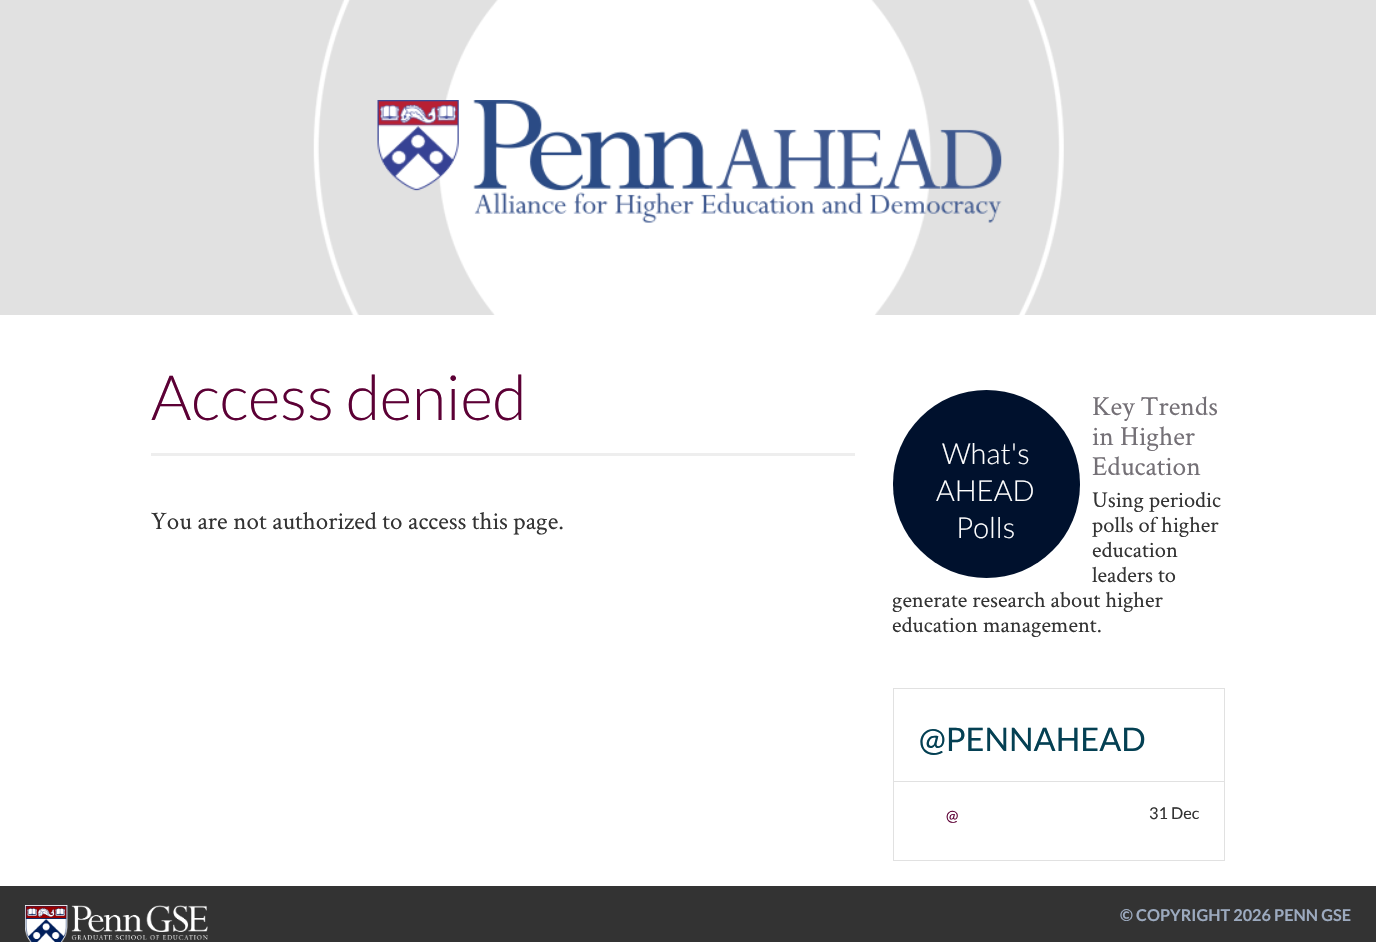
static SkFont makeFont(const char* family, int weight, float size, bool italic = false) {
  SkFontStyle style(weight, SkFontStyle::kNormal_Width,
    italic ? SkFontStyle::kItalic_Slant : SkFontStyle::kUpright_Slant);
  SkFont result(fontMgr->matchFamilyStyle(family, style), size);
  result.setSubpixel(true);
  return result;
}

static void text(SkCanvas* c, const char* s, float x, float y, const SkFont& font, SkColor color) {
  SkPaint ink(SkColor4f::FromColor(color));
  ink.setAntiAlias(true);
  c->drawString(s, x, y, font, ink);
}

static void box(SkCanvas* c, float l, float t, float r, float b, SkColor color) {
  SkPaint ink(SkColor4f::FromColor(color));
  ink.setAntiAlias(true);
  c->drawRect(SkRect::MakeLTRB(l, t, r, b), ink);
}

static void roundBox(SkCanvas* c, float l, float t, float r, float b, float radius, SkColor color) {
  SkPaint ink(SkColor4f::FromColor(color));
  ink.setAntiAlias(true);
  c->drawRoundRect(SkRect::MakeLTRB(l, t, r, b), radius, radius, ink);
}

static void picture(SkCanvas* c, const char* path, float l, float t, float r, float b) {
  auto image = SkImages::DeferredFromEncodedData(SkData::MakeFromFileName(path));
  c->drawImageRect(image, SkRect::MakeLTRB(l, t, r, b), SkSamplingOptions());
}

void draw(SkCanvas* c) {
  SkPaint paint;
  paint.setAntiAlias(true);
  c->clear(0xffffffff);
  box(c, 0, 0, 1376, 315, 0xffe1e1e1);
  picture(c, "img_01.png", 313, 0, 1064, 315);
  picture(c, "img_02.png", 377, 100, 1002, 223);
  box(c, 151, 453, 855, 456, 0xffeeeeee);
  SkFont face1 = makeFont("Lato", 300, 62.5f);
  text(c, "Access denied", 151, 420, face1, 0xff5c0035);
  SkFont face2 = makeFont("Crimson Text", 400, 25);
  text(c, "You are not authorized to access this page.", 151, 529, face2, 0xff333333);
  roundBox(c, 893, 390, 1080, 578, 93.5f, 0xff00112d);
  SkFont face3 = makeFont("Lato", 300, 29);
  text(c, "What's", 942, 464, face3, 0xffffffff);
  text(c, "AHEAD", 936, 501, face3, 0xffffffff);
  text(c, "Polls", 956, 538, face3, 0xffffffff);
  SkFont face4 = makeFont("Crimson Text", 400, 27.5f);
  text(c, "Key Trends", 1092, 415, face4, 0xff747076);
  text(c, "in Higher", 1092, 445, face4, 0xff747076);
  text(c, "Education", 1092, 475, face4, 0xff747076);
  SkFont face5 = makeFont("Crimson Text", 400, 22.5f);
  text(c, "Using periodic", 1092, 507, face5, 0xff333333);
  text(c, "polls of higher", 1092, 532, face5, 0xff333333);
  text(c, "education", 1092, 557, face5, 0xff333333);
  text(c, "leaders to", 1092, 582, face5, 0xff333333);
  text(c, "generate research about higher", 892, 607, face5, 0xff333333);
  text(c, "education management.", 892, 632, face5, 0xff333333);
  paint.setStyle(SkPaint::kStroke_Style);
  paint.setStrokeWidth(1);
  paint.setColor(0xffe1e1e1);
  c->drawRect(SkRect::MakeLTRB(893.5f, 688.5f, 1224.5f, 860.5f), paint);
  SkFont face6 = makeFont("Lato", 400, 32.5f);
  text(c, "@PENNAHEAD", 919, 751, face6, 0xff044053);
  box(c, 894, 781, 1224, 782, 0xffe1e1e1);
  SkFont face7 = makeFont("Lato", 400, 15);
  text(c, "@", 946, 821, face7, 0xff5c0035);
  SkFont face8 = makeFont("Lato", 400, 16.25f);
  text(c, "31 Dec", 1149, 819, face8, 0xff333333);
  box(c, 0, 886, 1376, 942, 0xff333333);
  picture(c, "img_03.png", 25, 905, 208, 942);
  SkFont face9 = makeFont("Lato", 700, 16.25f);
  text(c, "© COPYRIGHT 2026 PENN GSE", 1120, 921, face9, 0xff9caabf);
}
